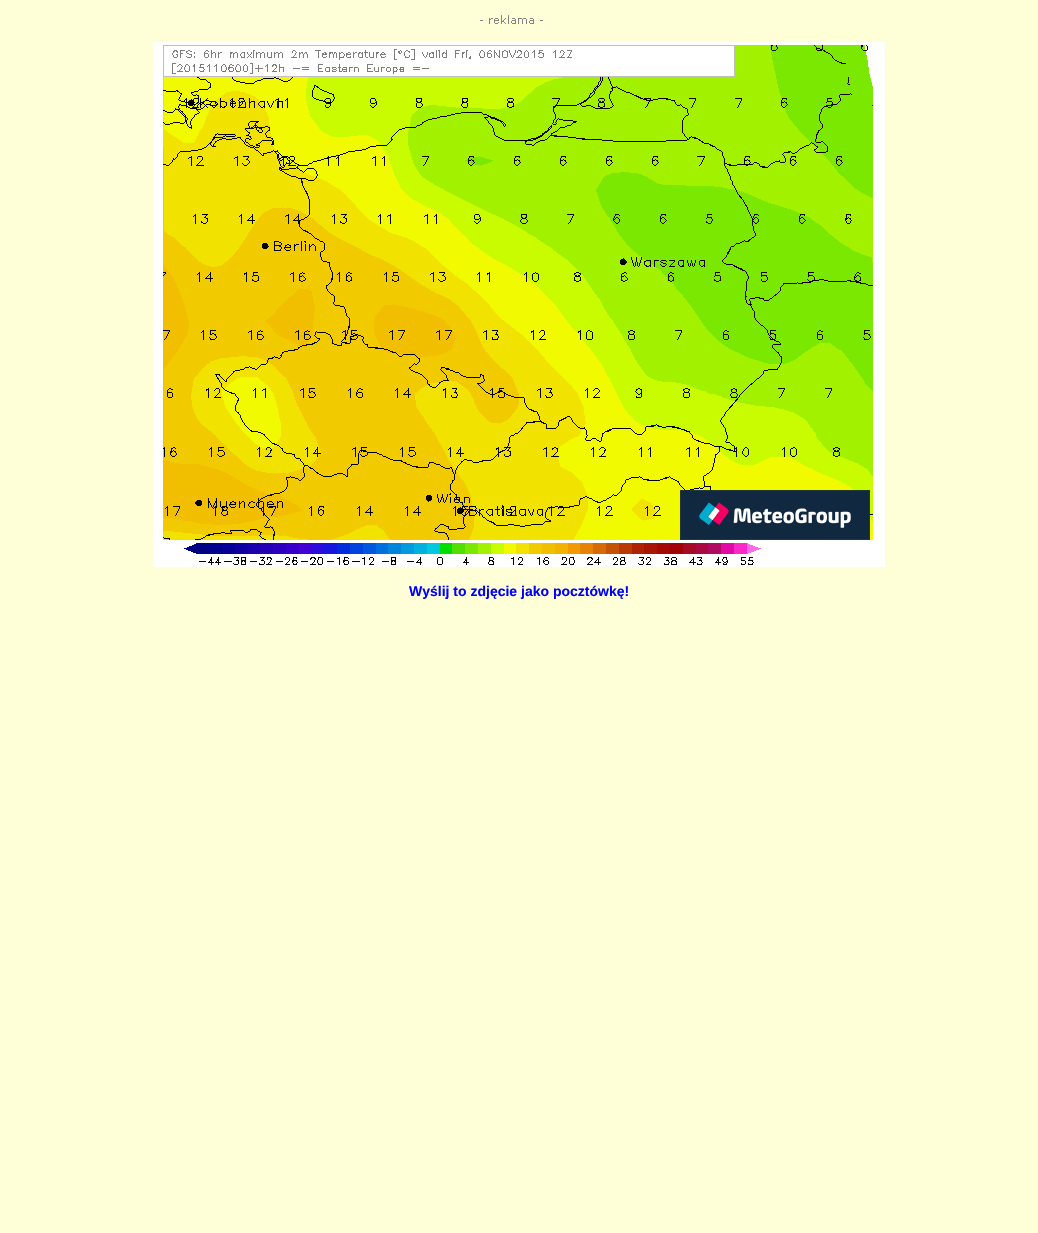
static SkFont makeFont(const char* family, int weight, float size, bool italic = false) {
  SkFontStyle style(weight, SkFontStyle::kNormal_Width,
    italic ? SkFontStyle::kItalic_Slant : SkFontStyle::kUpright_Slant);
  SkFont result(fontMgr->matchFamilyStyle(family, style), size);
  result.setSubpixel(true);
  return result;
}

static void text(SkCanvas* c, const char* s, float x, float y, const SkFont& font, SkColor color) {
  SkPaint ink(SkColor4f::FromColor(color));
  ink.setAntiAlias(true);
  c->drawString(s, x, y, font, ink);
}

static void picture(SkCanvas* c, const char* path, float l, float t, float r, float b) {
  auto image = SkImages::DeferredFromEncodedData(SkData::MakeFromFileName(path));
  c->drawImageRect(image, SkRect::MakeLTRB(l, t, r, b), SkSamplingOptions());
}

void draw(SkCanvas* c) {
  SkPaint paint;
  paint.setAntiAlias(true);
  c->clear(0xffffffd7);
  picture(c, "img_01.png", 480, 15, 543, 24);
  picture(c, "img_02.png", 153, 42, 885, 567);
  SkFont face1 = makeFont("Liberation Sans", 700, 14);
  text(c, "Wyślij to zdjęcie jako pocztówkę!", 409, 596, face1, 0xff0000ff);
}
